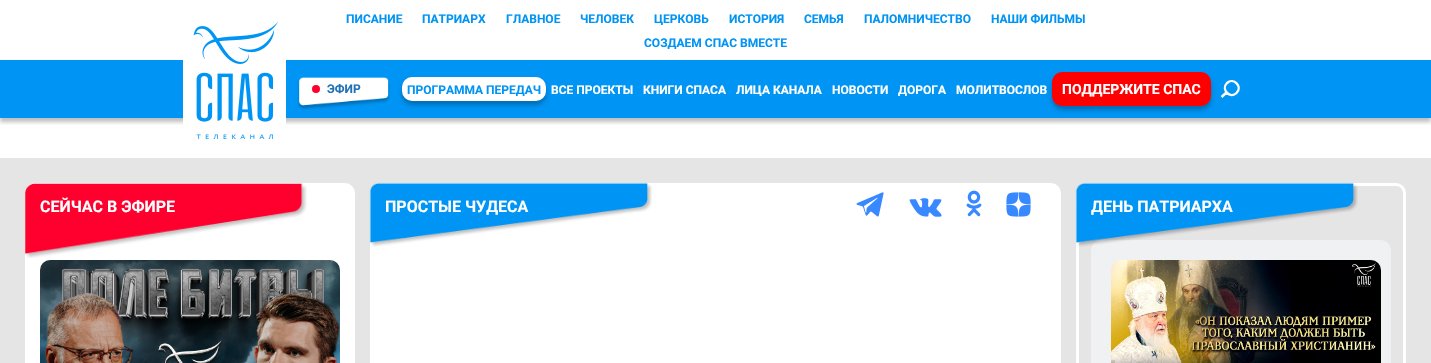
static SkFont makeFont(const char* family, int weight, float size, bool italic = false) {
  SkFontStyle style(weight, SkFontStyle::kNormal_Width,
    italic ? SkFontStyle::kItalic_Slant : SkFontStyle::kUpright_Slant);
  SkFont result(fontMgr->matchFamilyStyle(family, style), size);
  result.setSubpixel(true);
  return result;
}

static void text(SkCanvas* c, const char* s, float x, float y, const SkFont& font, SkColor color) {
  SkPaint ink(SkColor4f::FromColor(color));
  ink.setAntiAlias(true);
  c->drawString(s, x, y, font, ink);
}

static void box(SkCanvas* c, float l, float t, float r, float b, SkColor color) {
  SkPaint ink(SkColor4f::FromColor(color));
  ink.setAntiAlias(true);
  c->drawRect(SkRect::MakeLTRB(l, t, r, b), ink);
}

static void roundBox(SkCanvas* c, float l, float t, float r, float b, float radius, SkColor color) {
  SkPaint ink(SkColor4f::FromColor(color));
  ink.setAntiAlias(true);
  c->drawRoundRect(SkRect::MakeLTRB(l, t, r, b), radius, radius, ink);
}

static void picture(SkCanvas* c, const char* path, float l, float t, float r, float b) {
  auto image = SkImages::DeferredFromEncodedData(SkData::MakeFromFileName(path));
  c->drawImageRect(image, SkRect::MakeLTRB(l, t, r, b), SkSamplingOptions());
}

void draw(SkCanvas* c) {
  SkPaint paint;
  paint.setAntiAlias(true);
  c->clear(0xffffffff);
  c->save();
  c->clipRect(SkRect::MakeLTRB(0, 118, 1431, 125));
  paint.setColor(0x40000000);
  paint.setMaskFilter(SkMaskFilter::MakeBlur(kNormal_SkBlurStyle, 2));
  c->drawRect(SkRect::MakeLTRB(0, 4, 1431, 122), paint);
  paint.setMaskFilter(nullptr);
  c->restore();
  SkFont face1 = makeFont("Roboto", 700, 12);
  text(c, "ПИСАНИЕ", 346, 23, face1, 0xff0094f4);
  text(c, "ПАТРИАРХ", 422, 23, face1, 0xff0094f4);
  text(c, "ГЛАВНОЕ", 506, 23, face1, 0xff0094f4);
  text(c, "ЧЕЛОВЕК", 580, 23, face1, 0xff0094f4);
  text(c, "ЦЕРКОВЬ", 654, 23, face1, 0xff0094f4);
  text(c, "ИСТОРИЯ", 729, 23, face1, 0xff0094f4);
  text(c, "СЕМЬЯ", 804, 23, face1, 0xff0094f4);
  text(c, "ПАЛОМНИЧЕСТВО", 864, 23, face1, 0xff0094f4);
  text(c, "НАШИ ФИЛЬМЫ", 991, 23, face1, 0xff0094f4);
  text(c, "СОЗДАЕМ СПАС ВМЕСТЕ", 644, 47, face1, 0xff0094f4);
  box(c, 0, 60, 1431, 118, 0xff0094f4);
  picture(c, "img_01.png", 183, 22, 286, 140);
  picture(c, "img_02.png", 297, 77, 390, 110);
  paint.setColor(0xffff002e);
  c->drawCircle(316, 89, 4, paint);
  text(c, "ЭФИР", 327, 93, face1, 0xff2072b6);
  paint.setColor(0x40000000);
  paint.setMaskFilter(SkMaskFilter::MakeBlur(kNormal_SkBlurStyle, 2));
  c->drawRoundRect(SkRect::MakeLTRB(402, 81, 546, 105), 10, 10, paint);
  paint.setMaskFilter(nullptr);
  roundBox(c, 402, 77, 546, 101, 10, 0xffffffff);
  text(c, "ПРОГРАММА ПЕРЕДАЧ", 407, 94, face1, 0xff0094f4);
  text(c, "ВСЕ ПРОЕКТЫ", 551, 94, face1, 0xffffffff);
  text(c, "КНИГИ СПАСА", 643, 94, face1, 0xffffffff);
  text(c, "ЛИЦА КАНАЛА", 736, 94, face1, 0xffffffff);
  text(c, "НОВОСТИ", 832, 94, face1, 0xffffffff);
  text(c, "ДОРОГА", 898, 94, face1, 0xffffffff);
  text(c, "МОЛИТВОСЛОВ", 956, 94, face1, 0xffffffff);
  paint.setMaskFilter(SkMaskFilter::MakeBlur(kNormal_SkBlurStyle, 2));
  c->drawRoundRect(SkRect::MakeLTRB(1052, 76, 1211, 110), 10, 10, paint);
  paint.setMaskFilter(nullptr);
  roundBox(c, 1052, 72, 1211, 106, 10, 0xffff0000);
  SkFont face2 = makeFont("Roboto", 700, 14);
  text(c, "ПОДДЕРЖИТЕ СПАС", 1062, 94, face2, 0xffffffff);
  paint.setStyle(SkPaint::kStroke_Style);
  paint.setStrokeWidth(2.4f);
  paint.setColor(0xffffffff);
  c->drawPath(SkPathBuilder().moveTo(1236.5f, 93).cubicTo(1230.5f, 99.5f, 1220.5f, 89.5f, 1227, 83).cubicTo(1233.5f, 77, 1243, 86.5f, 1236.5f, 93).close().moveTo(1227, 92).lineTo(1221.5f, 97).detach(), paint);
  box(c, 0, 158, 1431, 363, 0xffe5e5e5);
  roundBox(c, 25, 183, 355, 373, 10, 0xffffffff);
  picture(c, "img_03.png", 25, 183, 307, 258);
  SkFont face3 = makeFont("Roboto", 700, 16);
  text(c, "СЕЙЧАС В ЭФИРЕ", 40, 212, face3, 0xffffffff);
  picture(c, "img_04.png", 40, 260, 340, 363);
  roundBox(c, 370, 183, 1061, 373, 10, 0xffffffff);
  picture(c, "img_05.png", 369, 182, 652, 247);
  text(c, "ПРОСТЫЕ ЧУДЕСА", 385, 212, face3, 0xffffffff);
  picture(c, "img_06.png", 856, 192, 884, 217);
  picture(c, "img_07.png", 909, 198, 942, 217);
  picture(c, "img_08.png", 966, 190, 982, 217);
  picture(c, "img_09.png", 1006, 192, 1031, 217);
  paint.setStrokeWidth(3);
  c->drawRoundRect(SkRect::MakeLTRB(1077.5f, 184.5f, 1404.5f, 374.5f), 8.5f, 8.5f, paint);
  roundBox(c, 1091, 240, 1391, 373, 10, 0xffeff1f2);
  picture(c, "img_10.png", 1075, 182, 1358, 247);
  text(c, "ДЕНЬ ПАТРИАРХА", 1091, 212, face3, 0xffffffff);
  picture(c, "img_11.png", 1111, 260, 1381, 363);
}
